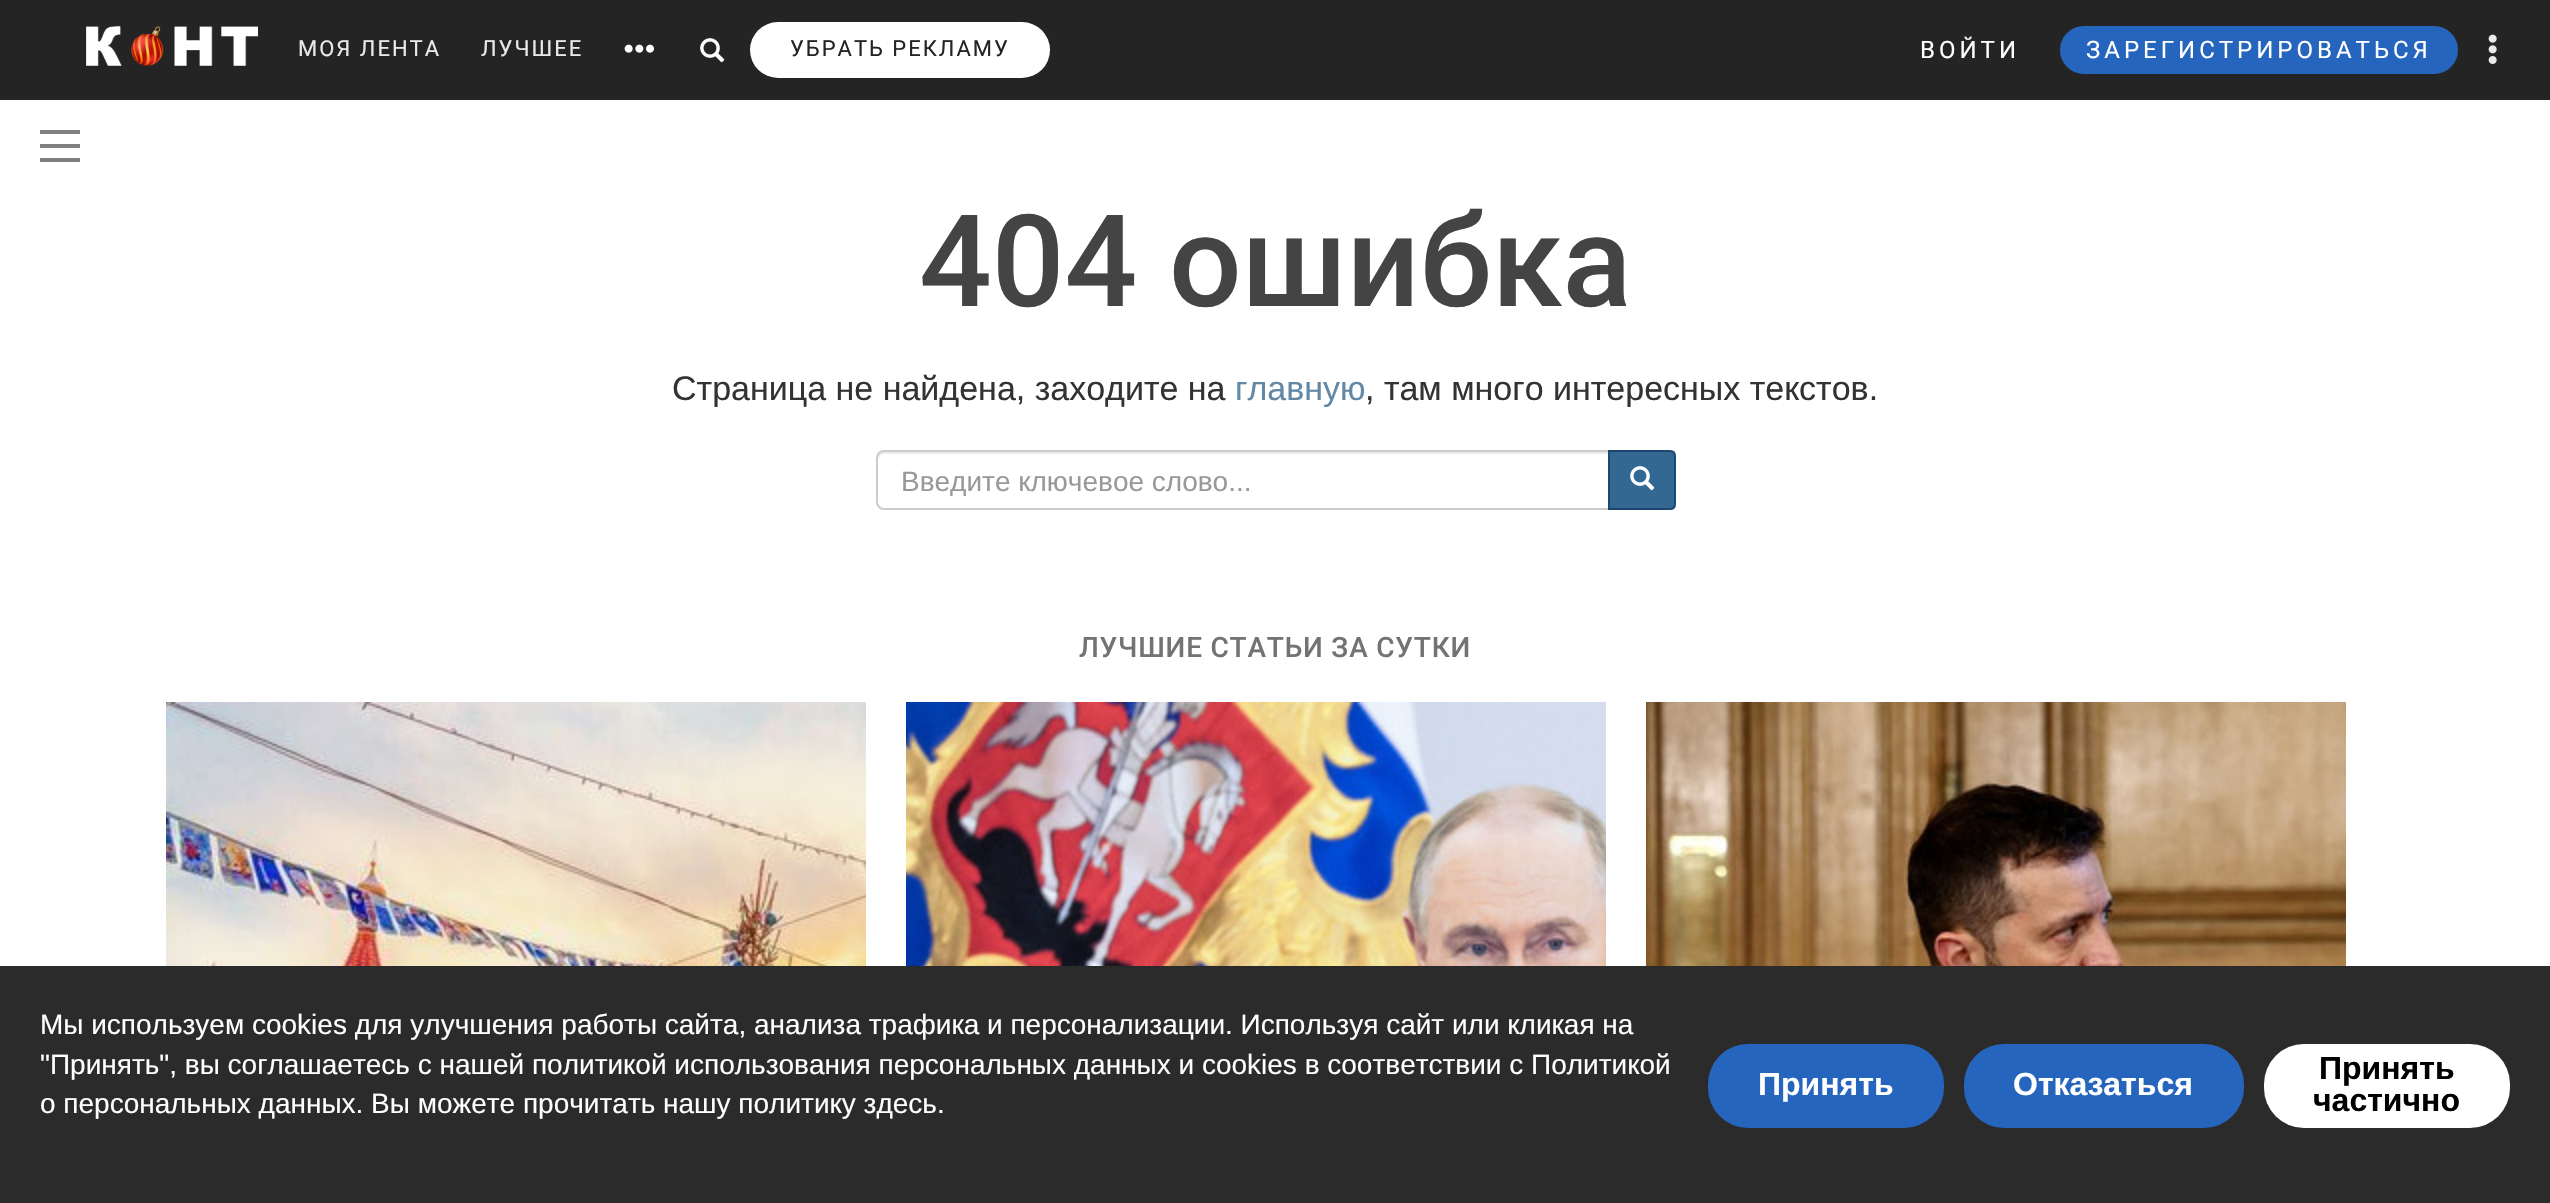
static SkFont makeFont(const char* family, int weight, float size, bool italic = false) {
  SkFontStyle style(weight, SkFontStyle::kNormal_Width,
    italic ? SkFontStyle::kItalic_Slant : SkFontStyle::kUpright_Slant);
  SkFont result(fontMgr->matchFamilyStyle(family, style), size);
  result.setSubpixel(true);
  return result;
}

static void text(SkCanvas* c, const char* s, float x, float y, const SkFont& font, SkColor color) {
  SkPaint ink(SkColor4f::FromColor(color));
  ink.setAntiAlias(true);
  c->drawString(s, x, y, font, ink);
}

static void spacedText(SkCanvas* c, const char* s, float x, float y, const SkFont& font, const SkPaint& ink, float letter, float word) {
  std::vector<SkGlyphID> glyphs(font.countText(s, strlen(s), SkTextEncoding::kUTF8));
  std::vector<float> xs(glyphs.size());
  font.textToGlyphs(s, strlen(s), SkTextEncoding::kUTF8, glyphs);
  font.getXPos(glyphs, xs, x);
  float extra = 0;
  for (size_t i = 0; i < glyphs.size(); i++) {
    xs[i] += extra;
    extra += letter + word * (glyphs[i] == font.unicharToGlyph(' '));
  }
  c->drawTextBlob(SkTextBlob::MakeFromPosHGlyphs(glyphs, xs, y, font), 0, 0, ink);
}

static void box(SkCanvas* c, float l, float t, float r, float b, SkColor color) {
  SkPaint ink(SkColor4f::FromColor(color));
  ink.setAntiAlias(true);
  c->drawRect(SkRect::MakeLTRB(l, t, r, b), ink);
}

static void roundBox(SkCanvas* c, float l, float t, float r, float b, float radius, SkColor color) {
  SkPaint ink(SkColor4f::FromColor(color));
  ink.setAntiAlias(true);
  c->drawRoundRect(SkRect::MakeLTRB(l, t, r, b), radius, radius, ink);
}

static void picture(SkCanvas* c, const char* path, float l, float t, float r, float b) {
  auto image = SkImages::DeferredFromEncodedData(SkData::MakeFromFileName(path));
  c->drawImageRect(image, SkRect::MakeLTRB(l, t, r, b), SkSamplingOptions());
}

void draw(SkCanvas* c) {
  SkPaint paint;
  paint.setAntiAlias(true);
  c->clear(0xffffffff);
  box(c, 0, 0, 2550, 100, 0xff242424);
  picture(c, "img_01.png", 86, 26, 258, 66);
  SkFont face1 = makeFont("Roboto", 400, 22);
  paint.setColor(0xffe9e9e9);
  spacedText(c, "МОЯ ЛЕНТА", 298, 56, face1, paint, 2, 0);
  spacedText(c, "ЛУЧШЕЕ", 481, 56, face1, paint, 2, 0);
  picture(c, "img_02.png", 624, 44, 654, 53);
  picture(c, "img_03.png", 700, 38, 725, 63);
  roundBox(c, 750, 22, 1050, 78, 28, 0xffffffff);
  paint.setColor(0xff242424);
  spacedText(c, "УБРАТЬ РЕКЛАМУ", 790, 56, face1, paint, 2, 0);
  SkFont face2 = makeFont("Roboto", 400, 24);
  paint.setColor(0xffffffff);
  spacedText(c, "ВОЙТИ", 1920, 58, face2, paint, 4, 0);
  paint.setColor(0xff2665bd);
  c->drawRoundRect(SkRect::MakeLTRB(2061, 27, 2457, 73), 23, 23, paint);
  paint.setStyle(SkPaint::kStroke_Style);
  paint.setStrokeWidth(2);
  c->drawRoundRect(SkRect::MakeLTRB(2061, 27, 2457, 73), 23, 23, paint);
  paint.setStyle(SkPaint::kFill_Style);
  paint.setColor(0xffffffff);
  spacedText(c, "ЗАРЕГИСТРИРОВАТЬСЯ", 2086, 58, face2, paint, 4, 0);
  picture(c, "img_04.png", 2488, 34, 2497, 64);
  box(c, 40, 130, 80, 134, 0xff808080);
  box(c, 40, 144, 80, 148, 0xff808080);
  box(c, 40, 158, 80, 162, 0xff808080);
  SkFont face3 = makeFont("Roboto", 500, 128);
  text(c, "404 ошибка", 919, 306, face3, 0xff444444);
  SkFont face4 = makeFont("Liberation Sans", 400, 34);
  text(c, "Страница не найдена, заходите на", 672, 400, face4, 0xff333333);
  text(c, "главную", 1235, 400, face4, 0xff6288a5);
  text(c, ", там много интересных текстов.", 1365, 400, face4, 0xff333333);
  paint.setColor(0xffececec);
  c->drawPath(SkPathBuilder().moveTo(884, 454).lineTo(1608, 454).lineTo(1608, 452).lineTo(884, 452).cubicTo(881, 452, 878, 455, 878, 458).lineTo(878, 460).cubicTo(878, 457, 881, 454, 884, 454).close().detach(), paint);
  paint.setStyle(SkPaint::kStroke_Style);
  paint.setColor(0xffcccccc);
  c->drawPath(SkPathBuilder().moveTo(884, 451).lineTo(1609, 451).lineTo(1609, 509).lineTo(884, 509).cubicTo(880, 509, 877, 506, 877, 502).lineTo(877, 458).cubicTo(877, 454, 880, 451, 884, 451).close().detach(), paint);
  c->save();
  c->clipRect(SkRect::MakeLTRB(902, 464, 1576, 496));
  SkFont face5 = makeFont("Liberation Sans", 400, 28);
  text(c, "Введите ключевое слово...", 901, 491, face5, 0xff999999);
  c->restore();
  paint.setStyle(SkPaint::kFill_Style);
  paint.setColor(0xff326891);
  c->drawPath(SkPathBuilder().moveTo(1609, 451).lineTo(1670, 451).cubicTo(1673, 451, 1675, 453, 1675, 456).lineTo(1675, 504).cubicTo(1675, 507, 1673, 509, 1670, 509).lineTo(1609, 509).close().detach(), paint);
  paint.setStyle(SkPaint::kStroke_Style);
  paint.setColor(0xff1a4870);
  c->drawPath(SkPathBuilder().moveTo(1609, 451).lineTo(1670, 451).cubicTo(1673, 451, 1675, 453, 1675, 456).lineTo(1675, 504).cubicTo(1675, 507, 1673, 509, 1670, 509).lineTo(1609, 509).close().detach(), paint);
  picture(c, "img_05.png", 1630, 466, 1655, 491);
  SkFont face6 = makeFont("Roboto", 500, 28);
  paint.setStyle(SkPaint::kFill_Style);
  paint.setColor(0xff737374);
  spacedText(c, "ЛУЧШИЕ СТАТЬИ ЗА СУТКИ", 1079, 657, face6, paint, 0.8f, 0);
  picture(c, "img_06.png", 166, 702, 866, 966);
  picture(c, "img_07.png", 906, 702, 1606, 966);
  picture(c, "img_08.png", 1646, 702, 2346, 966);
  box(c, 0, 966, 2550, 1203, 0xff2b2b2b);
  text(c, "Мы используем cookies для улучшения работы сайта, анализа трафика и персонализации. Используя сайт или кликая на", 40, 1034, face5, 0xffffffff);
  text(c, "\"Принять\", вы соглашаетесь с нашей политикой использования персональных данных и cookies в соответствии с Политикой", 40, 1074, face5, 0xffffffff);
  text(c, "о персональных данных. Вы можете прочитать нашу политику здесь.", 40, 1113, face5, 0xffffffff);
  roundBox(c, 1708, 1044, 1944, 1128, 40, 0xff2665bd);
  SkFont face7 = makeFont("Liberation Sans", 700, 32);
  text(c, "Принять", 1758, 1095, face7, 0xffffffff);
  roundBox(c, 1964, 1044, 2244, 1128, 40, 0xff2665bd);
  text(c, "Отказаться", 2013, 1095, face7, 0xffffffff);
  roundBox(c, 2264, 1044, 2510, 1128, 40, 0xffffffff);
  text(c, "Принять", 2319, 1079, face7, 0xff000000);
  text(c, "частично", 2313, 1111, face7, 0xff000000);
}
